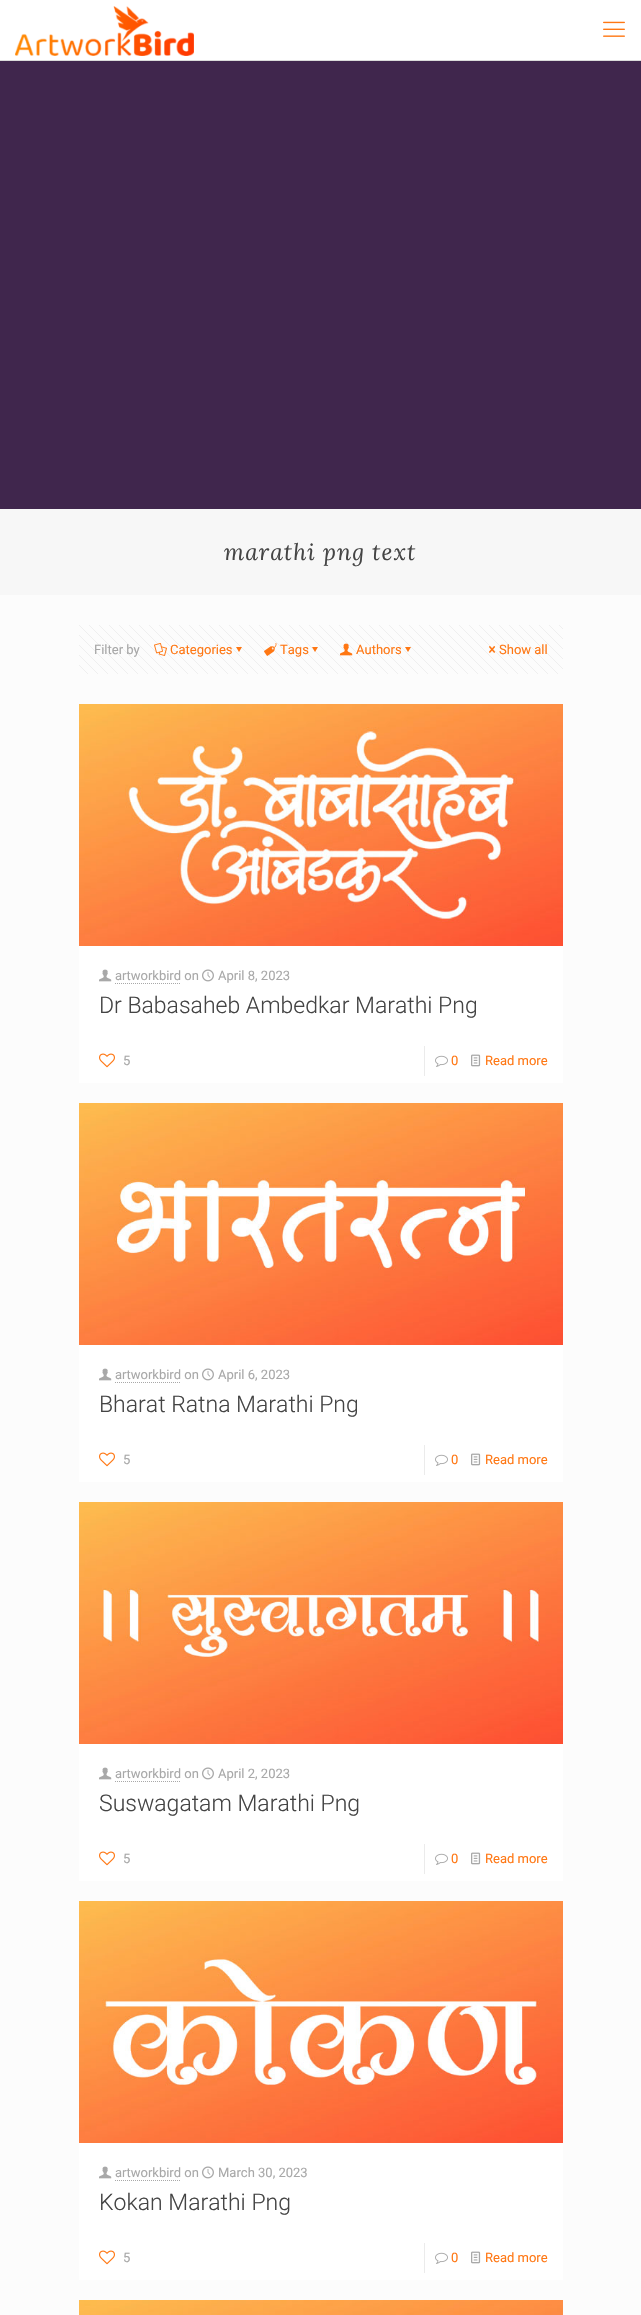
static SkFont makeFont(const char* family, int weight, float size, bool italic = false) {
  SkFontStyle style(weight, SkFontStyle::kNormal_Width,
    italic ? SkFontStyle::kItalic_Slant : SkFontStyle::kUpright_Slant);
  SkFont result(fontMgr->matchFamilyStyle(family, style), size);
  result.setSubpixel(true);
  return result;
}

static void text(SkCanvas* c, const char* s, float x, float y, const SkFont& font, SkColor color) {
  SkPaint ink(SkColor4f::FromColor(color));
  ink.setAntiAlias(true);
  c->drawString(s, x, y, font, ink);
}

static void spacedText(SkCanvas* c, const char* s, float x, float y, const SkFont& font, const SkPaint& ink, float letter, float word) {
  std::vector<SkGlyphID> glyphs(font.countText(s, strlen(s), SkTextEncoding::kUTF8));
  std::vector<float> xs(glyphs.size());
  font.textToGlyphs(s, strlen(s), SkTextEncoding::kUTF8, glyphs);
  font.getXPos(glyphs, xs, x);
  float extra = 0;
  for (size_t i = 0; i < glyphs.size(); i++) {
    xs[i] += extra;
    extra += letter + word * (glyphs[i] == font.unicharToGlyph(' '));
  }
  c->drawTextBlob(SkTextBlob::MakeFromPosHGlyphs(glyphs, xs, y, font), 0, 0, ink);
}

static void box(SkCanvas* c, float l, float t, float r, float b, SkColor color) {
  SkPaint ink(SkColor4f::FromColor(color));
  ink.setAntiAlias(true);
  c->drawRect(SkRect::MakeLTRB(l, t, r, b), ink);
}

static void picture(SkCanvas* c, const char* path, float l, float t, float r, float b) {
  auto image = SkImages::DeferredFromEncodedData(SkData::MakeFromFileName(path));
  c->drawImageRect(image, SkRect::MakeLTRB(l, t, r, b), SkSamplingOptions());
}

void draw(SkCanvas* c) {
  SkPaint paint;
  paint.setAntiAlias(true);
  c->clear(0xfffcfcfc);
  box(c, 0, 61, 641, 509, 0xff40264d);
  box(c, 0, 0, 641, 60, 0xffffffff);
  box(c, 0, 60, 641, 61, 0xffdadada);
  picture(c, "img_01.png", 15, 6, 194, 56);
  picture(c, "img_02.png", 603, 21, 625, 37);
  box(c, 0, 509, 641, 595, 0xfff7f7f7);
  SkFont face1 = makeFont("Lora", 400, 23, true);
  paint.setColor(0xff444444);
  spacedText(c, "marathi png text", 224, 560, face1, paint, 1, 0);
  picture(c, "img_03.png", 79, 625, 563, 674);
  SkFont face2 = makeFont("Roboto", 400, 13);
  text(c, "Filter by", 94, 654, face2, 0xffa8a8a8);
  picture(c, "img_04.png", 154, 643, 167, 656);
  text(c, "Categories", 170, 654, face2, 0xffff7713);
  paint.setColor(0xffff7713);
  c->drawPath(SkPathBuilder().moveTo(242, 647).lineTo(239, 652).lineTo(236, 647).close().detach(), paint);
  picture(c, "img_05.png", 264, 643, 277, 656);
  text(c, "Tags", 280, 654, face2, 0xffff7713);
  c->drawPath(SkPathBuilder().moveTo(318, 647).lineTo(315, 652).lineTo(312, 647).close().detach(), paint);
  picture(c, "img_06.png", 340, 643, 353, 656);
  text(c, "Authors", 356, 654, face2, 0xffff7713);
  c->drawPath(SkPathBuilder().moveTo(411, 647).lineTo(408, 652).lineTo(405, 647).close().detach(), paint);
  picture(c, "img_07.png", 489, 646, 496, 653);
  text(c, "Show all", 499, 654, face2, 0xffff7713);
  box(c, 79, 946, 563, 1083, 0xffffffff);
  picture(c, "img_08.png", 79, 704, 563, 946);
  picture(c, "img_09.png", 99, 969, 112, 982);
  text(c, "artworkbird on", 115, 980, face2, 0xffa8a8a8);
  paint.setStyle(SkPaint::kStroke_Style);
  paint.setStrokeWidth(1);
  paint.setColor(0xffa8a8a8);
  paint.setPathEffect(SkDashPathEffect::Make({{1, 1}}, 0));
  c->drawPath(SkPathBuilder().moveTo(115, 983.5f).lineTo(181, 983.5f).detach(), paint);
  paint.setPathEffect(nullptr);
  picture(c, "img_10.png", 202, 969, 214, 982);
  text(c, "April 8, 2023", 218, 980, face2, 0xffa8a8a8);
  SkFont face3 = makeFont("Roboto", 300, 23);
  text(c, "Dr Babasaheb Ambedkar Marathi Png", 99, 1013, face3, 0xff444444);
  picture(c, "img_11.png", 99, 1053, 115, 1068);
  text(c, "5", 123, 1065, face2, 0xffa8a8a8);
  box(c, 424, 1046, 425, 1076, 0xffebebeb);
  picture(c, "img_12.png", 435, 1055, 448, 1067);
  text(c, "0", 451, 1065, face2, 0xffff7713);
  picture(c, "img_13.png", 471, 1054, 481, 1067);
  text(c, "Read more", 485, 1065, face2, 0xffff7713);
  box(c, 79, 1345, 563, 1482, 0xffffffff);
  picture(c, "img_14.png", 79, 1103, 563, 1345);
  picture(c, "img_09.png", 99, 1368, 112, 1381);
  text(c, "artworkbird on", 115, 1379, face2, 0xffa8a8a8);
  paint.setPathEffect(SkDashPathEffect::Make({{1, 1}}, 0));
  c->drawPath(SkPathBuilder().moveTo(115, 1382.5f).lineTo(181, 1382.5f).detach(), paint);
  paint.setPathEffect(nullptr);
  picture(c, "img_10.png", 202, 1368, 214, 1381);
  text(c, "April 6, 2023", 218, 1379, face2, 0xffa8a8a8);
  text(c, "Bharat Ratna Marathi Png", 99, 1412, face3, 0xff444444);
  picture(c, "img_11.png", 99, 1452, 115, 1467);
  text(c, "5", 123, 1464, face2, 0xffa8a8a8);
  box(c, 424, 1445, 425, 1475, 0xffebebeb);
  picture(c, "img_12.png", 435, 1454, 448, 1466);
  text(c, "0", 451, 1464, face2, 0xffff7713);
  picture(c, "img_13.png", 471, 1453, 481, 1466);
  text(c, "Read more", 485, 1464, face2, 0xffff7713);
  box(c, 79, 1744, 563, 1881, 0xffffffff);
  picture(c, "img_15.png", 79, 1502, 563, 1744);
  picture(c, "img_09.png", 99, 1767, 112, 1780);
  text(c, "artworkbird on", 115, 1778, face2, 0xffa8a8a8);
  paint.setPathEffect(SkDashPathEffect::Make({{1, 1}}, 0));
  c->drawPath(SkPathBuilder().moveTo(115, 1781.5f).lineTo(181, 1781.5f).detach(), paint);
  paint.setPathEffect(nullptr);
  picture(c, "img_10.png", 202, 1767, 214, 1780);
  text(c, "April 2, 2023", 218, 1778, face2, 0xffa8a8a8);
  text(c, "Suswagatam Marathi Png", 99, 1811, face3, 0xff444444);
  picture(c, "img_11.png", 99, 1851, 115, 1866);
  text(c, "5", 123, 1863, face2, 0xffa8a8a8);
  box(c, 424, 1844, 425, 1874, 0xffebebeb);
  picture(c, "img_12.png", 435, 1853, 448, 1865);
  text(c, "0", 451, 1863, face2, 0xffff7713);
  picture(c, "img_13.png", 471, 1852, 481, 1865);
  text(c, "Read more", 485, 1863, face2, 0xffff7713);
  box(c, 79, 2143, 563, 2280, 0xffffffff);
  picture(c, "img_16.png", 79, 1901, 563, 2143);
  picture(c, "img_09.png", 99, 2166, 112, 2179);
  text(c, "artworkbird on", 115, 2177, face2, 0xffa8a8a8);
  paint.setPathEffect(SkDashPathEffect::Make({{1, 1}}, 0));
  c->drawPath(SkPathBuilder().moveTo(115, 2180.5f).lineTo(181, 2180.5f).detach(), paint);
  paint.setPathEffect(nullptr);
  picture(c, "img_10.png", 202, 2166, 214, 2179);
  text(c, "March 30, 2023", 218, 2177, face2, 0xffa8a8a8);
  text(c, "Kokan Marathi Png", 99, 2210, face3, 0xff444444);
  picture(c, "img_11.png", 99, 2250, 115, 2265);
  text(c, "5", 123, 2262, face2, 0xffa8a8a8);
  box(c, 424, 2243, 425, 2273, 0xffebebeb);
  picture(c, "img_12.png", 435, 2252, 448, 2264);
  text(c, "0", 451, 2262, face2, 0xffff7713);
  picture(c, "img_13.png", 471, 2251, 481, 2264);
  text(c, "Read more", 485, 2262, face2, 0xffff7713);
  picture(c, "img_17.png", 79, 2300, 563, 2315);
}
